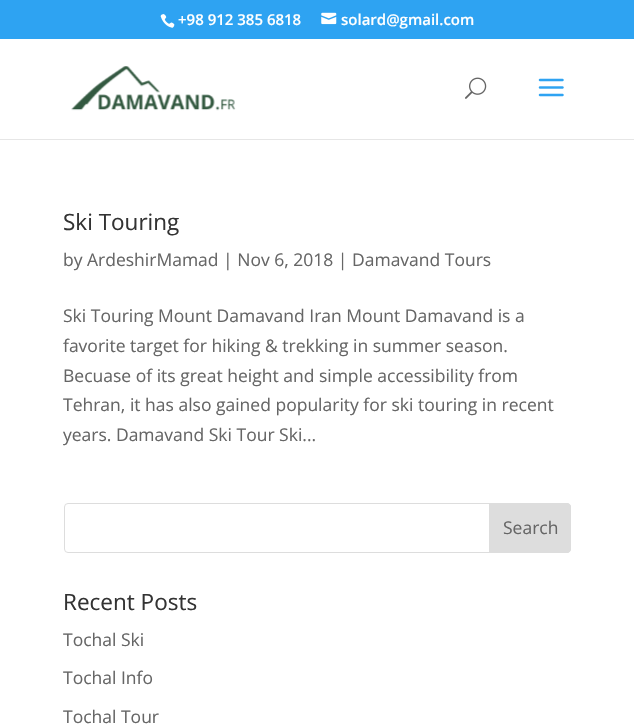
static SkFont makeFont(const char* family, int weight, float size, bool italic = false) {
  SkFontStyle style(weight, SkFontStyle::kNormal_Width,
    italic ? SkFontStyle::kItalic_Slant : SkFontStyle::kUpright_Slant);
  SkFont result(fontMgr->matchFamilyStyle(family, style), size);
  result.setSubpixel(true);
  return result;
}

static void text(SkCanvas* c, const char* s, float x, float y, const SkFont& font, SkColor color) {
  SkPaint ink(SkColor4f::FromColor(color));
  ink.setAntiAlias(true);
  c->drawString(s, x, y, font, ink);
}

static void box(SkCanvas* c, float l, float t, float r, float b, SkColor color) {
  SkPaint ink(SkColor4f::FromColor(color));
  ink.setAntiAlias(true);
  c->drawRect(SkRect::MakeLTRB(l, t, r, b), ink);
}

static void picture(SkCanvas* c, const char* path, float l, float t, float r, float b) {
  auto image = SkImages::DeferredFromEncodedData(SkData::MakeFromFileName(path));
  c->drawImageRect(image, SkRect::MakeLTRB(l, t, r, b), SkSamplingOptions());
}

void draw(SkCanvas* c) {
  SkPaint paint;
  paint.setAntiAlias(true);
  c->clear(0xffffffff);
  box(c, 0, 0, 634, 39, 0xff2ea3f2);
  picture(c, "img_01.png", 160, 14, 175, 28);
  SkFont face1 = makeFont("Open Sans", 600, 15);
  text(c, "+98 912 385 6818", 178, 25, face1, 0xffffffff);
  picture(c, "img_02.png", 321, 12, 337, 25);
  text(c, "solard@gmail.com", 341, 25, face1, 0xffffffff);
  box(c, 0, 139, 634, 140, 0xffe6e6e6);
  picture(c, "img_03.png", 71, 66, 236, 111);
  picture(c, "img_04.png", 465, 77, 487, 99);
  picture(c, "img_05.png", 538, 78, 564, 97);
  SkFont face2 = makeFont("Open Sans", 400, 22.5f);
  text(c, "Ski Touring", 63, 230, face2, 0xff333333);
  SkFont face3 = makeFont("Open Sans", 400, 17.5f);
  text(c, "by ArdeshirMamad | Nov 6, 2018 | Damavand Tours", 63, 266, face3, 0xff666666);
  text(c, "Ski Touring Mount Damavand Iran Mount Damavand is a", 63, 322, face3, 0xff666666);
  text(c, "favorite target for hiking & trekking in summer season.", 63, 352, face3, 0xff666666);
  text(c, "Becuase of its great height and simple accessibility from", 63, 382, face3, 0xff666666);
  text(c, "Tehran, it has also gained popularity for ski touring in recent", 63, 411, face3, 0xff666666);
  text(c, "years. Damavand Ski Tour Ski...", 63, 441, face3, 0xff666666);
  paint.setStyle(SkPaint::kStroke_Style);
  paint.setStrokeWidth(1);
  paint.setColor(0xffdddddd);
  c->drawRoundRect(SkRect::MakeLTRB(64.5f, 503.5f, 570.5f, 552.5f), 3.5f, 3.5f, paint);
  paint.setStyle(SkPaint::kFill_Style);
  c->drawPath(SkPathBuilder().moveTo(489.5f, 503.5f).lineTo(567, 503.5f).cubicTo(569, 503.5f, 570.5f, 505, 570.5f, 507).lineTo(570.5f, 549).cubicTo(570.5f, 551, 569, 552.5f, 567, 552.5f).lineTo(489.5f, 552.5f).close().detach(), paint);
  paint.setStyle(SkPaint::kStroke_Style);
  c->drawPath(SkPathBuilder().moveTo(489.5f, 503.5f).lineTo(567, 503.5f).cubicTo(569, 503.5f, 570.5f, 505, 570.5f, 507).lineTo(570.5f, 549).cubicTo(570.5f, 551, 569, 552.5f, 567, 552.5f).lineTo(489.5f, 552.5f).close().detach(), paint);
  text(c, "Search", 503, 534, face3, 0xff666666);
  text(c, "Recent Posts", 63, 610, face2, 0xff333333);
  text(c, "Tochal Ski", 63, 646, face3, 0xff666666);
  text(c, "Tochal Info", 63, 684, face3, 0xff666666);
  text(c, "Tochal Tour", 63, 723, face3, 0xff666666);
}
